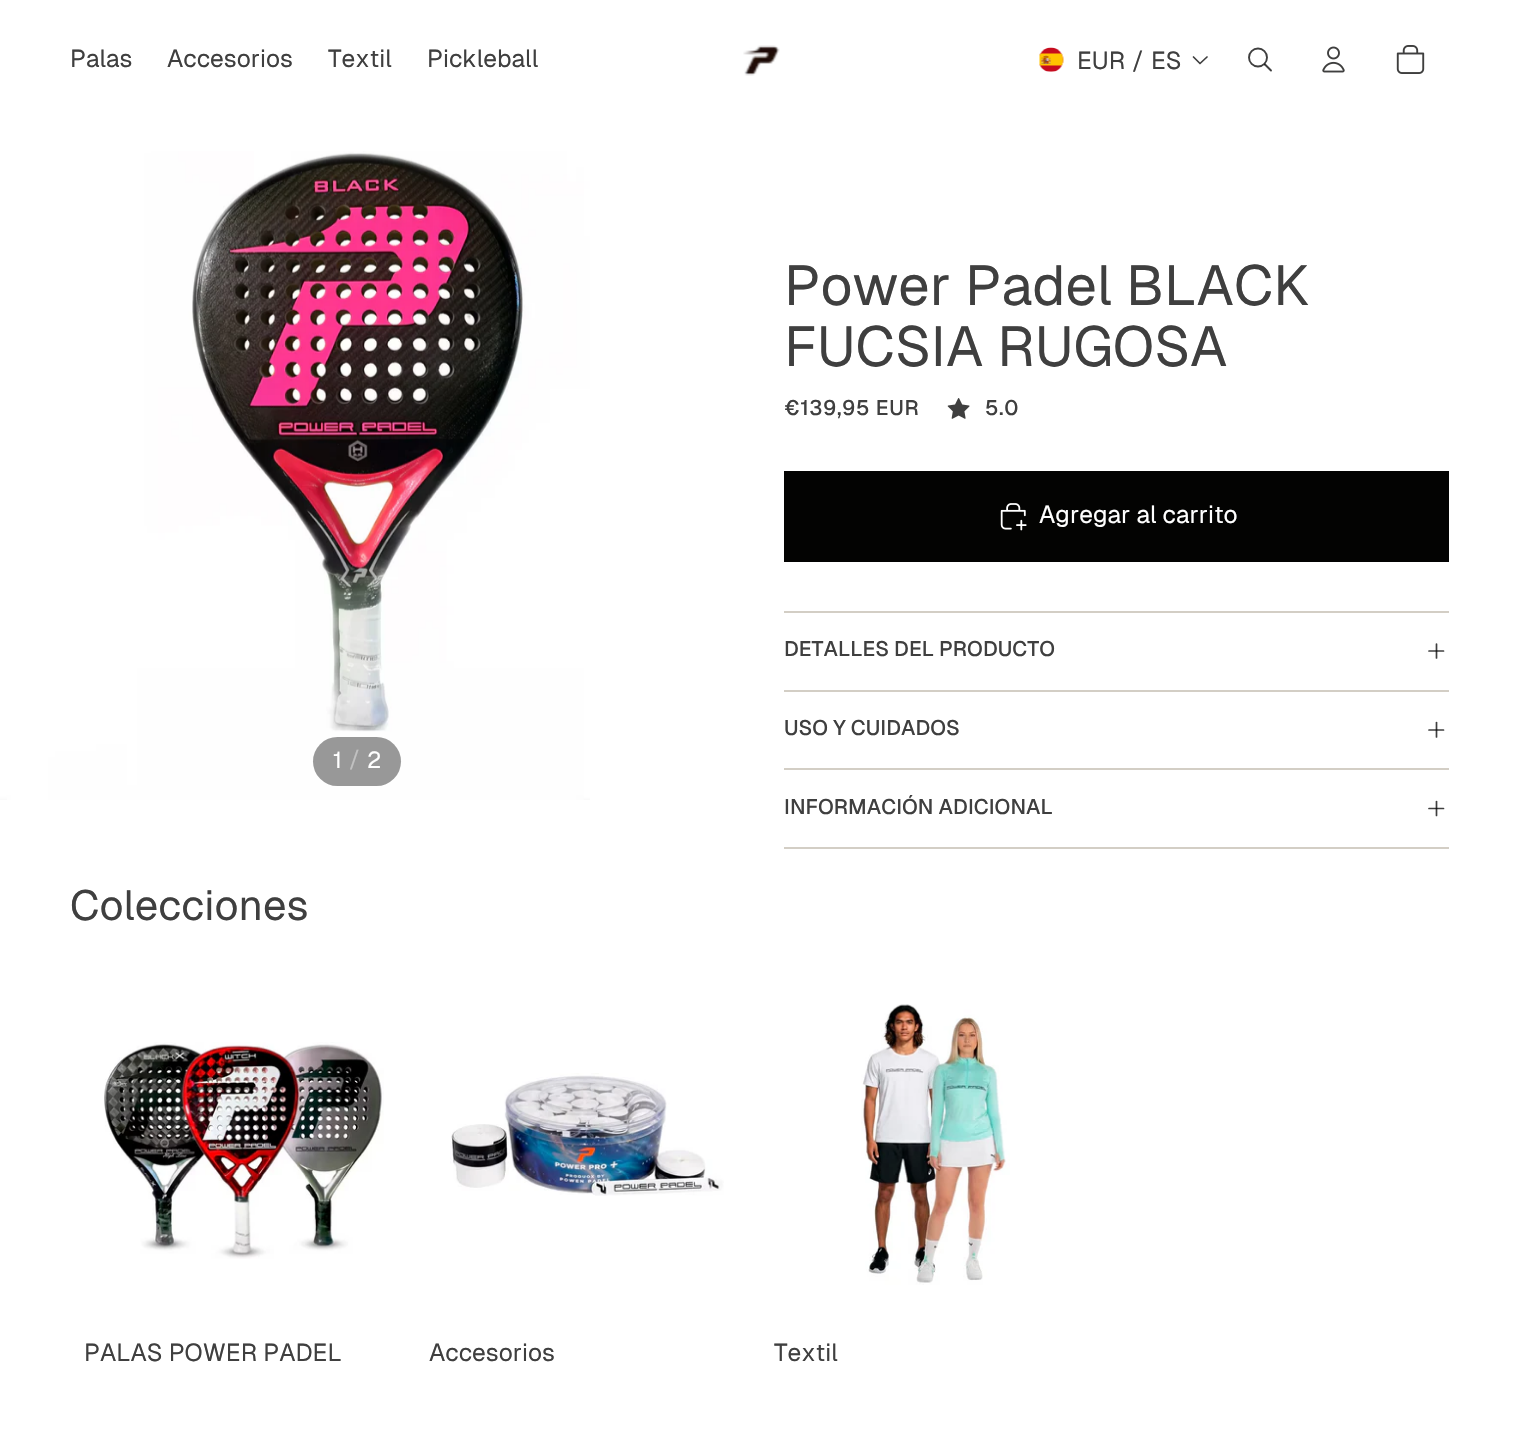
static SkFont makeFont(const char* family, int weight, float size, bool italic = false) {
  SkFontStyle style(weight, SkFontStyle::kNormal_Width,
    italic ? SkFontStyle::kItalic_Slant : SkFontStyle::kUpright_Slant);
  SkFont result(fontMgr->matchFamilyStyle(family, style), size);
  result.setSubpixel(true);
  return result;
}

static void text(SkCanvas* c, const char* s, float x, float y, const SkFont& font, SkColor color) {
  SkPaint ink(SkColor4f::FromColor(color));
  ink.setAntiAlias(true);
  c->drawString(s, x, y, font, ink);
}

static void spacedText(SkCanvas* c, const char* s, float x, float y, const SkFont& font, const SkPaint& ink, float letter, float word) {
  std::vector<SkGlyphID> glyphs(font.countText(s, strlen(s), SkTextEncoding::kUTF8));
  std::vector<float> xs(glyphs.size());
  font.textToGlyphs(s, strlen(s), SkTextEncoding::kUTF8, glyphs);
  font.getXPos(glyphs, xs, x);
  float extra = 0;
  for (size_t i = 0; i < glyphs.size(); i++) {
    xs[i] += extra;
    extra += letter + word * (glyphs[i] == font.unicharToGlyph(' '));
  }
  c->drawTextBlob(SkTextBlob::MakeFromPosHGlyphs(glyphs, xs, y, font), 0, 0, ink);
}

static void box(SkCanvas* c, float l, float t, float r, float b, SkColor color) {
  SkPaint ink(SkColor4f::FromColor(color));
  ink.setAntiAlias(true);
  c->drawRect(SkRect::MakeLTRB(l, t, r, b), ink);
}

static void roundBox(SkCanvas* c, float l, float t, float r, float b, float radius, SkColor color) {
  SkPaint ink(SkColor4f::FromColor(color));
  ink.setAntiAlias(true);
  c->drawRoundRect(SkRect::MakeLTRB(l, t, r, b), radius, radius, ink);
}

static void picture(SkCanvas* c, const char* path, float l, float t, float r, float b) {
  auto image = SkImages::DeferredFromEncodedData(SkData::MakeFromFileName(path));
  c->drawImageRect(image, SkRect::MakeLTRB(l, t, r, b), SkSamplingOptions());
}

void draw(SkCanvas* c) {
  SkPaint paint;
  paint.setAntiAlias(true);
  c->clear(0xffffffff);
  SkFont face1 = makeFont("Geist", 400, 24.5f);
  text(c, "Palas", 70, 67, face1, 0xff3f3f3f);
  text(c, "Accesorios", 167, 67, face1, 0xff3f3f3f);
  text(c, "Textil", 328, 67, face1, 0xff3f3f3f);
  text(c, "Pickleball", 427, 67, face1, 0xff3f3f3f);
  picture(c, "img_01.png", 743, 45, 780, 76);
  picture(c, "img_02.png", 1039, 47, 1064, 72);
  text(c, "EUR", 1077, 69, face1, 0xff3f3f3f);
  text(c, "/", 1132, 69, face1, 0xff3f3f3f);
  text(c, "ES", 1151, 69, face1, 0xff3f3f3f);
  paint.setStyle(SkPaint::kStroke_Style);
  paint.setStrokeWidth(1.7f);
  paint.setStrokeCap(SkPaint::kRound_Cap);
  paint.setStrokeJoin(SkPaint::kRound_Join);
  paint.setColor(0xff3f3f3f);
  c->drawPath(SkPathBuilder().moveTo(1207, 57).lineTo(1200, 63.5f).lineTo(1193.5f, 57).detach(), paint);
  paint.setStrokeWidth(1.9f);
  paint.setStrokeCap(SkPaint::kButt_Cap);
  paint.setStrokeJoin(SkPaint::kMiter_Join);
  c->drawCircle(1258, 57.5f, 9, paint);
  paint.setStrokeCap(SkPaint::kRound_Cap);
  paint.setStrokeJoin(SkPaint::kRound_Join);
  paint.setColor(0xc2030302);
  c->drawPath(SkPathBuilder().moveTo(1265, 64.5f).lineTo(1271, 70.5f).detach(), paint);
  picture(c, "img_03.png", 1322, 46, 1345, 73);
  picture(c, "img_04.png", 1396, 45, 1425, 74);
  picture(c, "img_05.png", 0, 151, 590, 800);
  roundBox(c, 313, 737, 401, 786, 24.5f, 0xff989898);
  SkFont face2 = makeFont("Geist", 400, 23);
  text(c, "1", 333, 768, face2, 0xffffffff);
  text(c, "/", 349, 767, face2, 0xffc1c1c1);
  text(c, "2", 367, 768, face2, 0xffffffff);
  SkFont face3 = makeFont("Geist", 400, 56);
  text(c, "Power Padel BLACK", 784, 305, face3, 0xff3f3f3f);
  text(c, "FUCSIA RUGOSA", 784, 366, face3, 0xff3f3f3f);
  SkFont face4 = makeFont("Geist", 500, 21);
  paint.setStyle(SkPaint::kFill_Style);
  paint.setColor(0xff3f3f3f);
  spacedText(c, "€139,95 EUR", 784, 415, face4, paint, 0.6f, 0);
  picture(c, "img_06.png", 947, 398, 970, 419);
  spacedText(c, "5.0", 985, 415, face4, paint, 0.6f, 0);
  box(c, 784, 471, 1449, 562, 0xff030302);
  picture(c, "img_07.png", 1000, 503, 1027, 531);
  text(c, "Agregar al carrito", 1039, 523, face1, 0xffffffff);
  box(c, 784, 611, 1449, 613, 0xffd3cec5);
  text(c, "DETALLES DEL PRODUCTO", 784, 656, face4, 0xff3f3f3f);
  paint.setStyle(SkPaint::kStroke_Style);
  paint.setStrokeWidth(1.7f);
  paint.setStrokeJoin(SkPaint::kMiter_Join);
  c->drawPath(SkPathBuilder().moveTo(1429, 651).lineTo(1443.5f, 651).detach(), paint);
  paint.setColor(0xc2030302);
  c->drawPath(SkPathBuilder().moveTo(1436.5f, 644).lineTo(1436.5f, 658).detach(), paint);
  box(c, 784, 690, 1449, 692, 0xffd3cec5);
  text(c, "USO Y CUIDADOS", 784, 735, face4, 0xff3f3f3f);
  paint.setColor(0xff3f3f3f);
  c->drawPath(SkPathBuilder().moveTo(1429, 730).lineTo(1443.5f, 730).detach(), paint);
  paint.setColor(0xc2030302);
  c->drawPath(SkPathBuilder().moveTo(1436.5f, 722.5f).lineTo(1436.5f, 737).detach(), paint);
  box(c, 784, 768, 1449, 770, 0xffd3cec5);
  box(c, 784, 847, 1449, 849, 0xffd3cec5);
  text(c, "INFORMACIÓN ADICIONAL", 784, 814, face4, 0xff3f3f3f);
  paint.setColor(0xff3f3f3f);
  c->drawPath(SkPathBuilder().moveTo(1429, 808.5f).lineTo(1443.5f, 808.5f).detach(), paint);
  paint.setColor(0xc2030302);
  c->drawPath(SkPathBuilder().moveTo(1436.5f, 801.5f).lineTo(1436.5f, 815.5f).detach(), paint);
  SkFont face5 = makeFont("Geist", 400, 42);
  text(c, "Colecciones", 70, 920, face5, 0xff3f3f3f);
  picture(c, "img_08.png", 104, 1042, 384, 1259);
  text(c, "PALAS POWER PADEL", 84, 1361, face1, 0xff3f3f3f);
  picture(c, "img_09.png", 450, 1073, 724, 1196);
  text(c, "Accesorios", 429, 1361, face1, 0xff3f3f3f);
  picture(c, "img_10.png", 861, 1004, 1010, 1285);
  text(c, "Textil", 774, 1361, face1, 0xff3f3f3f);
}
